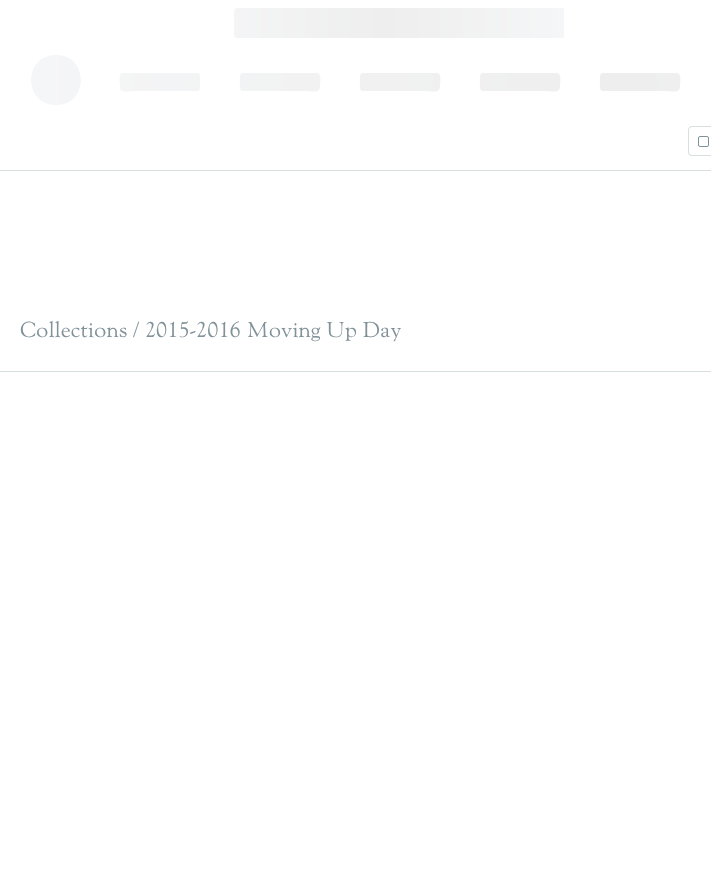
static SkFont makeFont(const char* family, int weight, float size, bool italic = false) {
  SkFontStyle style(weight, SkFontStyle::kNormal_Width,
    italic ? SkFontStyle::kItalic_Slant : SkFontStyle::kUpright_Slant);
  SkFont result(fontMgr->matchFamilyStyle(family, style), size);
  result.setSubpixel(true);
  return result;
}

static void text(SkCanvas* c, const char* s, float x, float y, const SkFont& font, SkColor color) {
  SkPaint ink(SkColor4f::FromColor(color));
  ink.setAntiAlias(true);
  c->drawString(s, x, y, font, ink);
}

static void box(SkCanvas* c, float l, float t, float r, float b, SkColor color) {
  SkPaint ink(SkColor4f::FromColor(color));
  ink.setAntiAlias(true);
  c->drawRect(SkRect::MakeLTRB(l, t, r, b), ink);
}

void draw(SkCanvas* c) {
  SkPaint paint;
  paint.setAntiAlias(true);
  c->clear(0xffffffff);
  box(c, 0, 170, 711, 171, 0xffd9dee0);
  {
    const SkColor colors[] = {0xfff5f6f7, 0xffeeeeee, 0xfff5f6f7};
    const float stops[] = {0, 0.5f, 1};
    const SkPoint ends[] = {{204, 0}, {564, 0}};
    paint.setShader(SkGradientShader::MakeLinear(ends, colors, stops, 3, SkTileMode::kClamp));
    paint.setAlpha(255);
  }
  c->drawPath(SkPathBuilder().moveTo(237, 8).lineTo(564, 8).lineTo(564, 38).lineTo(237, 38).cubicTo(235.5f, 38, 234, 36.5f, 234, 35).lineTo(234, 11).cubicTo(234, 9.5f, 235.5f, 8, 237, 8).close().detach(), paint);
  {
    const SkColor colors[] = {0xfff5f6f7, 0xffeeeeee, 0xfff5f6f7};
    const float stops[] = {0, 0.5f, 1};
    const SkPoint ends[] = {{20, 55}, {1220, 55}};
    paint.setShader(SkGradientShader::MakeLinear(ends, colors, stops, 3, SkTileMode::kClamp));
    paint.setAlpha(255);
  }
  c->drawPath(SkPathBuilder(SkPathFillType::kEvenOdd).moveTo(56, 55).cubicTo(23, 55, 23, 105, 56, 105).cubicTo(89, 105, 89, 55, 56, 55).close().moveTo(123, 73).cubicTo(118, 73, 120, 83, 120, 86).cubicTo(120, 94, 128, 91, 135, 91).lineTo(197, 91).cubicTo(201, 91, 200, 85, 200, 82).cubicTo(200, 79, 201, 73, 197, 73).close().moveTo(243, 73).cubicTo(239, 73, 240, 79, 240, 82).cubicTo(240, 85, 239, 91, 243, 91).lineTo(305, 91).cubicTo(312, 91, 320, 94, 320, 86).cubicTo(320, 83, 322, 73, 317, 73).close().moveTo(363, 73).cubicTo(359, 73, 360, 79, 360, 82).cubicTo(360, 85, 359, 91, 363, 91).lineTo(425, 91).cubicTo(432, 91, 440, 94, 440, 86).cubicTo(440, 83, 442, 73, 437, 73).close().moveTo(483, 73).cubicTo(479, 73, 480, 79, 480, 82).cubicTo(480, 85, 479, 91, 483, 91).lineTo(545, 91).cubicTo(552, 91, 560, 94, 560, 86).cubicTo(560, 83, 562, 73, 557, 73).close().moveTo(603, 73).cubicTo(599, 73, 600, 79, 600, 82).cubicTo(600, 85, 599, 91, 603, 91).lineTo(665, 91).cubicTo(672, 91, 680, 94, 680, 86).cubicTo(680, 83, 682, 73, 677, 73).close().moveTo(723, 73).cubicTo(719, 73, 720, 79, 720, 82).cubicTo(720, 85, 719, 91, 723, 91).lineTo(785, 91).cubicTo(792, 91, 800, 94, 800, 86).cubicTo(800, 83, 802, 73, 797, 73).close().moveTo(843, 73).cubicTo(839, 73, 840, 79, 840, 82).cubicTo(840, 85, 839, 91, 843, 91).lineTo(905, 91).cubicTo(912, 91, 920, 94, 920, 86).cubicTo(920, 83, 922, 73, 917, 73).close().moveTo(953, 73).cubicTo(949, 73, 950, 79, 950, 82).cubicTo(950, 85, 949, 91, 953, 91).lineTo(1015, 91).cubicTo(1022, 91, 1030, 94, 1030, 86).cubicTo(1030, 83, 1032, 73, 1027, 73).close().detach(), paint);
  paint.setShader(nullptr);
  paint.setColor(0xffd9dee0);
  c->drawPath(SkPathBuilder(SkPathFillType::kEvenOdd).moveTo(692, 126).lineTo(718, 126).lineTo(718, 156).lineTo(692, 156).cubicTo(690, 156, 688, 154, 688, 152).lineTo(688, 130).cubicTo(688, 128, 690, 126, 692, 126).close().moveTo(692, 127).lineTo(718, 127).lineTo(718, 155).lineTo(692, 155).cubicTo(690.5f, 155, 689, 153.5f, 689, 152).lineTo(689, 130).cubicTo(689, 128.5f, 690.5f, 127, 692, 127).close().detach(), paint);
  paint.setStyle(SkPaint::kStroke_Style);
  paint.setStrokeWidth(1);
  paint.setColor(0xff809199);
  c->drawRoundRect(SkRect::MakeLTRB(698.5f, 136.5f, 708.5f, 146.5f), 1.5f, 1.5f, paint);
  box(c, 0, 371, 711, 372, 0xffd9dee0);
  SkFont face1 = makeFont("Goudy", 400, 22);
  text(c, "Collections / 2015-2016 Moving Up Day", 20, 337, face1, 0xff809199);
}
